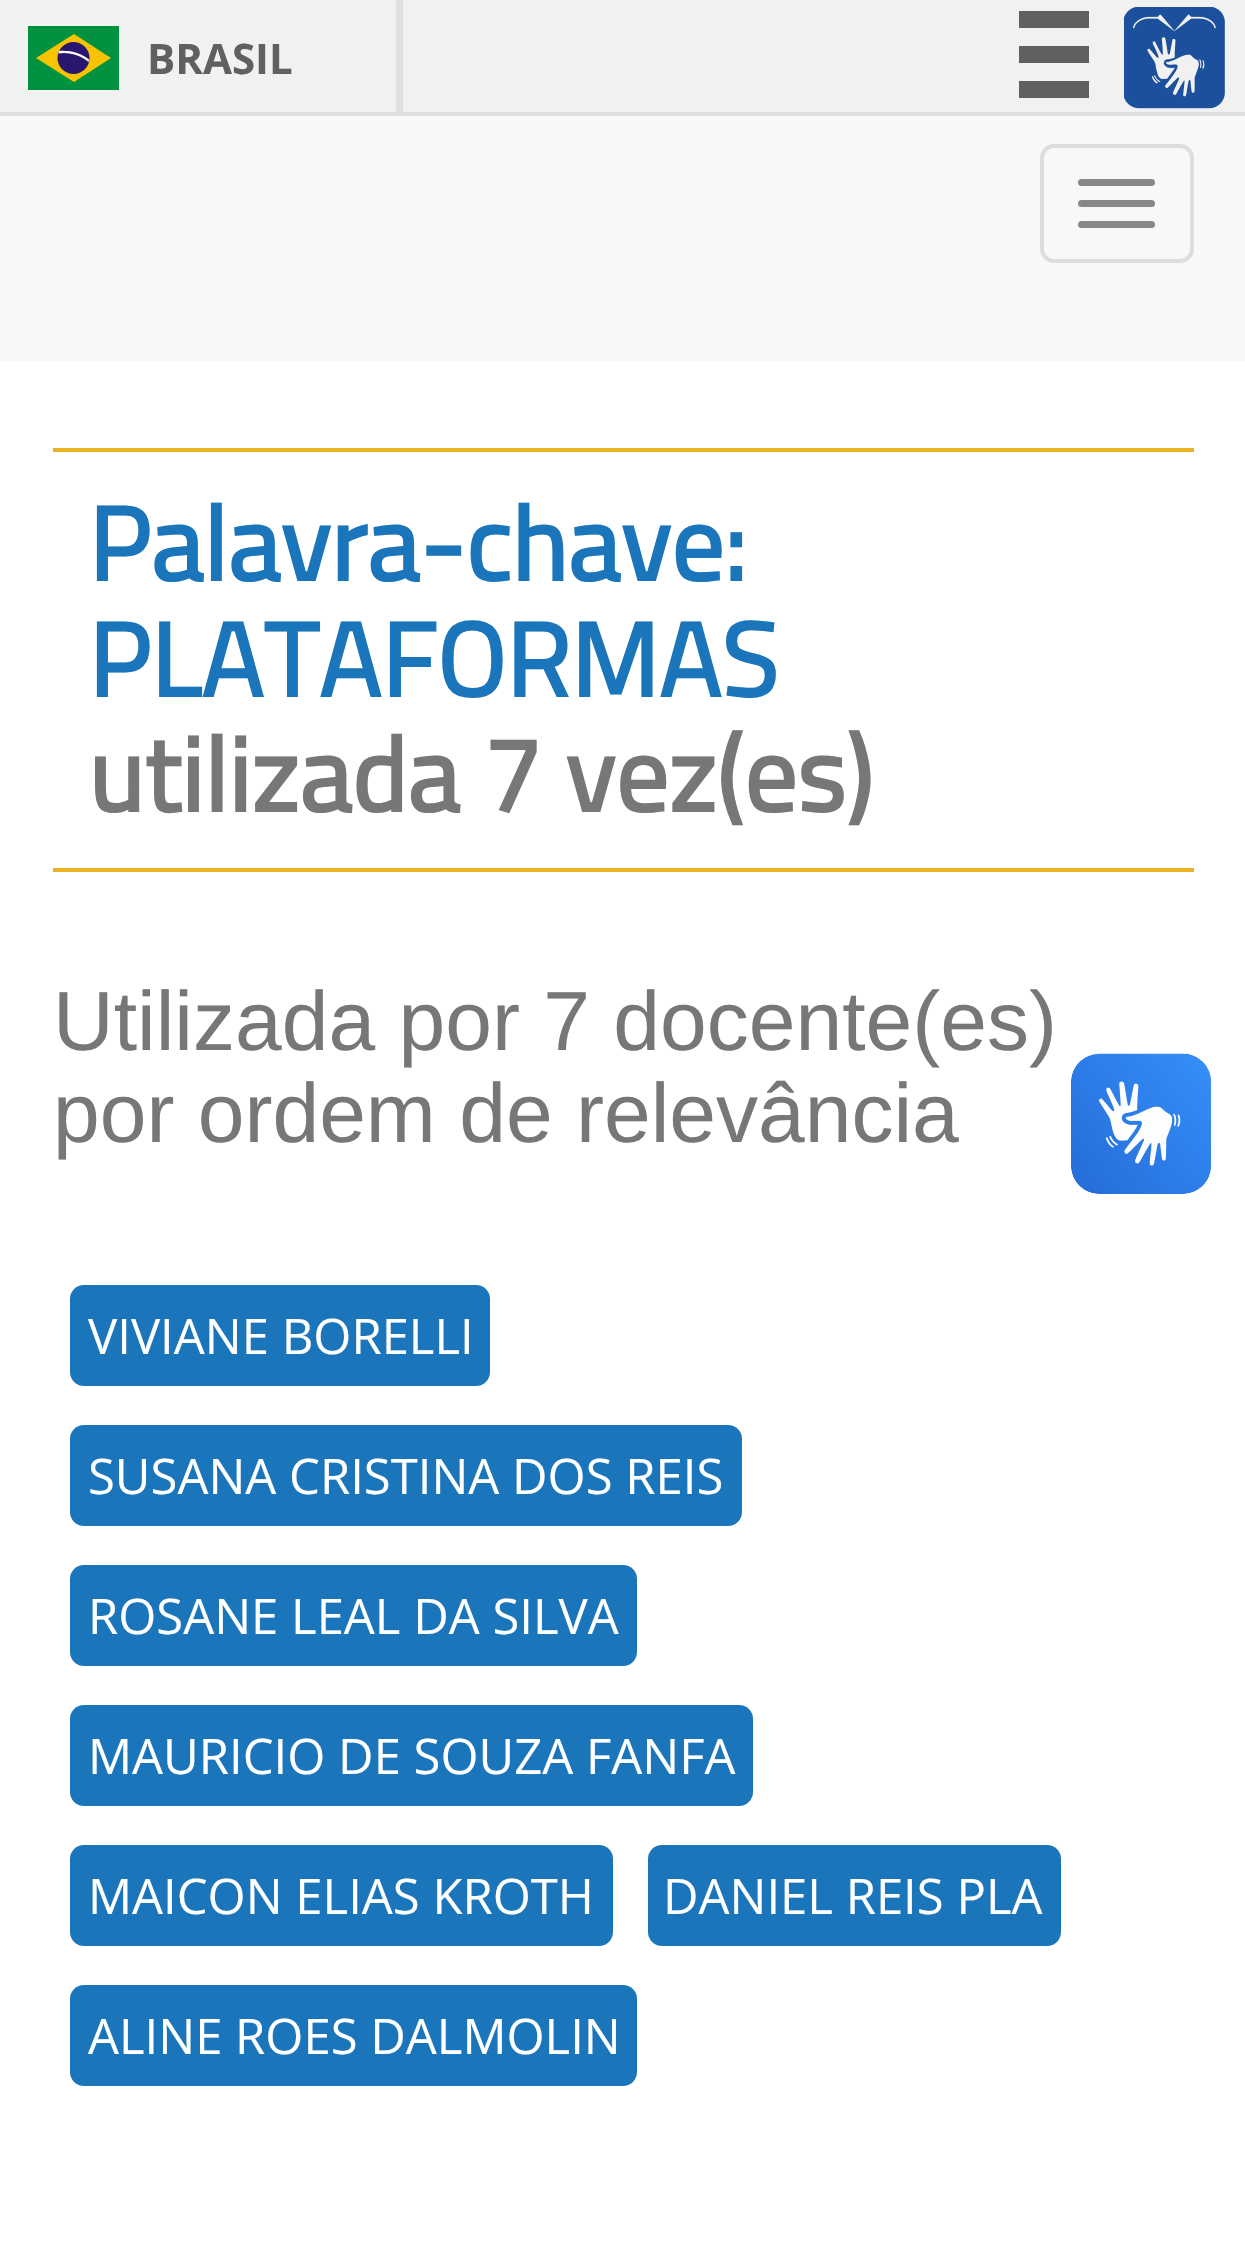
static SkFont makeFont(const char* family, int weight, float size, bool italic = false) {
  SkFontStyle style(weight, SkFontStyle::kNormal_Width,
    italic ? SkFontStyle::kItalic_Slant : SkFontStyle::kUpright_Slant);
  SkFont result(fontMgr->matchFamilyStyle(family, style), size);
  result.setSubpixel(true);
  return result;
}

static void text(SkCanvas* c, const char* s, float x, float y, const SkFont& font, SkColor color) {
  SkPaint ink(SkColor4f::FromColor(color));
  ink.setAntiAlias(true);
  c->drawString(s, x, y, font, ink);
}

static void box(SkCanvas* c, float l, float t, float r, float b, SkColor color) {
  SkPaint ink(SkColor4f::FromColor(color));
  ink.setAntiAlias(true);
  c->drawRect(SkRect::MakeLTRB(l, t, r, b), ink);
}

static void roundBox(SkCanvas* c, float l, float t, float r, float b, float radius, SkColor color) {
  SkPaint ink(SkColor4f::FromColor(color));
  ink.setAntiAlias(true);
  c->drawRoundRect(SkRect::MakeLTRB(l, t, r, b), radius, radius, ink);
}

static void picture(SkCanvas* c, const char* path, float l, float t, float r, float b) {
  auto image = SkImages::DeferredFromEncodedData(SkData::MakeFromFileName(path));
  c->drawImageRect(image, SkRect::MakeLTRB(l, t, r, b), SkSamplingOptions());
}

void draw(SkCanvas* c) {
  SkPaint paint;
  paint.setAntiAlias(true);
  c->clear(0xffffffff);
  box(c, 0, 0, 1245, 112, 0xfff1f1f1);
  box(c, 0, 112, 1245, 116, 0xffdfdfdf);
  box(c, 396, 0, 403, 112, 0xffdfdfdf);
  box(c, 28, 26, 119, 90, 0xff00923f);
  paint.setColor(0xfff8c300);
  c->drawPath(SkPathBuilder().moveTo(74, 34).lineTo(36, 58).lineTo(74, 82).lineTo(111, 58).close().detach(), paint);
  paint.setColor(0xff28166f);
  c->drawCircle(73.5f, 58, 16, paint);
  paint.setColor(0xffffffff);
  c->drawPath(SkPathBuilder().moveTo(64, 53).cubicTo(73.5f, 53, 82, 56.5f, 88.5f, 62).lineTo(89, 59.5f).cubicTo(81, 53, 70, 50, 59, 51).lineTo(58.5f, 53.5f).close().detach(), paint);
  SkFont face1 = makeFont("Open Sans", 700, 42);
  text(c, "BRASIL", 147, 74, face1, 0xff606060);
  box(c, 1019, 11, 1089, 28, 0xff606060);
  box(c, 1019, 46, 1089, 63, 0xff606060);
  box(c, 1019, 81, 1089, 98, 0xff606060);
  picture(c, "img_01.png", 1124, 7, 1225, 109);
  box(c, 0, 116, 1245, 361, 0xfff8f8f8);
  paint.setStyle(SkPaint::kStroke_Style);
  paint.setStrokeWidth(4);
  paint.setColor(0xffdddddd);
  c->drawRoundRect(SkRect::MakeLTRB(1042, 146, 1192, 261), 12, 12, paint);
  roundBox(c, 1078, 179, 1155, 186, 3.5f, 0xff888888);
  roundBox(c, 1078, 200, 1155, 207, 3.5f, 0xff888888);
  roundBox(c, 1078, 221, 1155, 228, 3.5f, 0xff888888);
  box(c, 53, 448, 1194, 452, 0xffe8b424);
  box(c, 53, 868, 1194, 872, 0xffe8b424);
  SkFont face2 = makeFont("Titillium Web", 700, 105);
  text(c, "Palavra-chave:", 88, 581, face2, 0xff1b75bb);
  text(c, "PLATAFORMAS", 88, 697, face2, 0xff1b75bb);
  text(c, "utilizada 7 vez(es)", 88, 812, face2, 0xff777777);
  SkFont face3 = makeFont("Liberation Sans", 400, 84);
  text(c, "Utilizada por 7 docente(es)", 53, 1050, face3, 0xff777777);
  text(c, "por ordem de relevância", 53, 1142, face3, 0xff777777);
  roundBox(c, 70, 1285, 490, 1386, 14, 0xff1b75bb);
  SkFont face4 = makeFont("Open Sans", 400, 49);
  text(c, "VIVIANE BORELLI", 88, 1354, face4, 0xffffffff);
  roundBox(c, 70, 1425, 742, 1526, 14, 0xff1b75bb);
  text(c, "SUSANA CRISTINA DOS REIS", 88, 1494, face4, 0xffffffff);
  roundBox(c, 70, 1565, 637, 1666, 14, 0xff1b75bb);
  text(c, "ROSANE LEAL DA SILVA", 88, 1634, face4, 0xffffffff);
  roundBox(c, 70, 1705, 753, 1806, 14, 0xff1b75bb);
  text(c, "MAURICIO DE SOUZA FANFA", 88, 1774, face4, 0xffffffff);
  roundBox(c, 70, 1845, 613, 1946, 14, 0xff1b75bb);
  text(c, "MAICON ELIAS KROTH", 88, 1914, face4, 0xffffffff);
  roundBox(c, 648, 1845, 1061, 1946, 14, 0xff1b75bb);
  text(c, "DANIEL REIS PLA", 663, 1914, face4, 0xffffffff);
  roundBox(c, 70, 1985, 637, 2086, 14, 0xff1b75bb);
  text(c, "ALINE ROES DALMOLIN", 88, 2054, face4, 0xffffffff);
  picture(c, "img_02.png", 1071, 1053, 1211, 1194);
  picture(c, "img_03.png", 1071, 1054, 1211, 1194);
}
